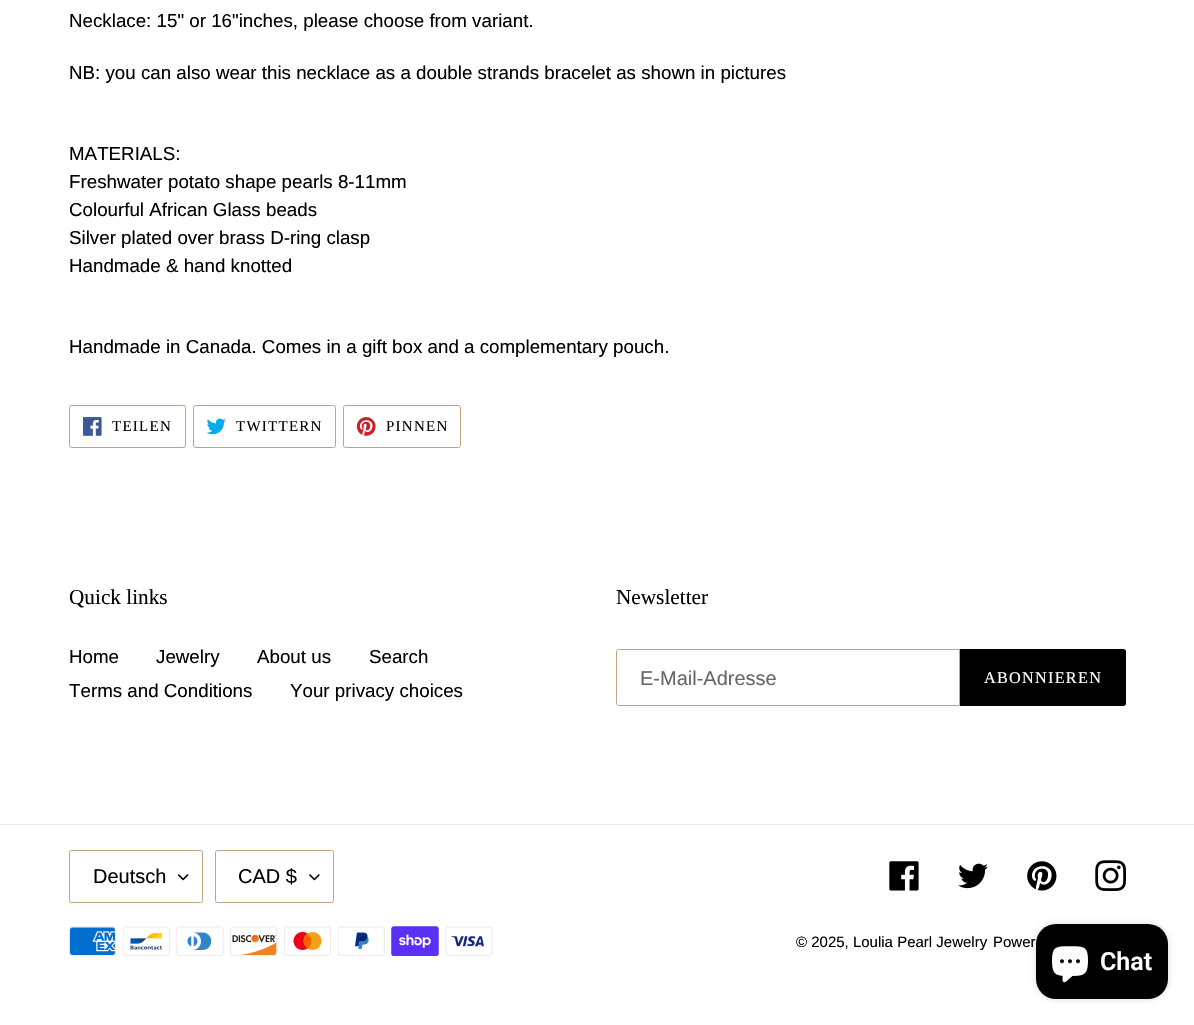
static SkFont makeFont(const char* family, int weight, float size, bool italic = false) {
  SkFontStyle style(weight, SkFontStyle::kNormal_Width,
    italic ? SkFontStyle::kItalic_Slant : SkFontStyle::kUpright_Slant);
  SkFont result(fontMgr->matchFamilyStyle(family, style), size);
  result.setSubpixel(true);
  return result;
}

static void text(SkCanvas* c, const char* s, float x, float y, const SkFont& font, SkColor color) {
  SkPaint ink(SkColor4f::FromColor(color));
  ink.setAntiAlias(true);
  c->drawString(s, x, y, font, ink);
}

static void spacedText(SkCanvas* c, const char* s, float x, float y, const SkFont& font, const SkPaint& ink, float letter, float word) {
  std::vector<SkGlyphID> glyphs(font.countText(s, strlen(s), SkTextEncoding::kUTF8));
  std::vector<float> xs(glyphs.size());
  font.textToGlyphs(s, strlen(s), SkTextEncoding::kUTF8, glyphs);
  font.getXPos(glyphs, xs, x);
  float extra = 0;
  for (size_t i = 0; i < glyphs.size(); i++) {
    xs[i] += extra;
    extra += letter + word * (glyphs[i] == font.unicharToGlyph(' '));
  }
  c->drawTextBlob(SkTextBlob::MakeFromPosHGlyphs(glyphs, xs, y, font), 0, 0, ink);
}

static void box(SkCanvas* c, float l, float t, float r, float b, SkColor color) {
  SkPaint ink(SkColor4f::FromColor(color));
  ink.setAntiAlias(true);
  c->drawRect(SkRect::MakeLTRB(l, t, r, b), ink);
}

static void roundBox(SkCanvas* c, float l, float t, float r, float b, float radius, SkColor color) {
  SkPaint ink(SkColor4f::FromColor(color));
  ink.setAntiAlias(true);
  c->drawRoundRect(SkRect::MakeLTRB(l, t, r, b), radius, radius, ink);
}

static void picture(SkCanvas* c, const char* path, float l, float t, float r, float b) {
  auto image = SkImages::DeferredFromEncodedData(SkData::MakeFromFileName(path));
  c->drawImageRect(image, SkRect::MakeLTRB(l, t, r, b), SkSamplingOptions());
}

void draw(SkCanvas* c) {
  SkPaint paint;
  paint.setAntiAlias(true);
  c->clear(0xffffffff);
  SkFont face1 = makeFont("Liberation Sans", 400, 18.75f);
  text(c, "Necklace: 15\" or 16\"inches, please choose from variant.", 69, 27, face1, 0xff000000);
  text(c, "NB: you can also wear this necklace as a double strands bracelet as shown in pictures", 69, 79, face1, 0xff000000);
  text(c, "MATERIALS:", 69, 160, face1, 0xff000000);
  text(c, "Freshwater potato shape pearls 8-11mm", 69, 188, face1, 0xff000000);
  text(c, "Colourful African Glass beads", 69, 216, face1, 0xff000000);
  text(c, "Silver plated over brass D-ring clasp", 69, 244, face1, 0xff000000);
  text(c, "Handmade & hand knotted", 69, 272, face1, 0xff000000);
  text(c, "Handmade in Canada. Comes in a gift box and a complementary pouch.", 69, 353, face1, 0xff000000);
  paint.setStyle(SkPaint::kStroke_Style);
  paint.setStrokeWidth(1);
  paint.setColor(0xffc1a37f);
  c->drawRoundRect(SkRect::MakeLTRB(69.5f, 405.5f, 185.5f, 447.5f), 2, 2, paint);
  picture(c, "img_01.png", 83, 417, 102, 436);
  SkFont face2 = makeFont("Liberation Serif", 400, 15);
  paint.setStyle(SkPaint::kFill_Style);
  paint.setColor(0xff000000);
  spacedText(c, "TEILEN", 112, 431, face2, paint, 1.25f, 0);
  paint.setStyle(SkPaint::kStroke_Style);
  paint.setColor(0xffc1a37f);
  c->drawRoundRect(SkRect::MakeLTRB(193.5f, 405.5f, 335.5f, 447.5f), 2, 2, paint);
  picture(c, "img_02.png", 206, 418, 226, 435);
  paint.setStyle(SkPaint::kFill_Style);
  paint.setColor(0xff000000);
  spacedText(c, "TWITTERN", 236, 431, face2, paint, 1.25f, 0);
  paint.setStyle(SkPaint::kStroke_Style);
  paint.setColor(0xffc1a37f);
  c->drawRoundRect(SkRect::MakeLTRB(343.5f, 405.5f, 460.5f, 447.5f), 2, 2, paint);
  picture(c, "img_03.png", 356, 417, 376, 436);
  paint.setStyle(SkPaint::kFill_Style);
  paint.setColor(0xff000000);
  spacedText(c, "PINNEN", 386, 431, face2, paint, 1.25f, 0);
  SkFont face3 = makeFont("Liberation Serif", 400, 21.25f);
  text(c, "Quick links", 69, 604, face3, 0xff000000);
  text(c, "Home", 69, 663, face1, 0xff000000);
  text(c, "Jewelry", 156, 663, face1, 0xff000000);
  text(c, "About us", 257, 663, face1, 0xff000000);
  text(c, "Search", 369, 663, face1, 0xff000000);
  text(c, "Terms and Conditions", 69, 697, face1, 0xff000000);
  text(c, "Your privacy choices", 290, 697, face1, 0xff000000);
  text(c, "Newsletter", 616, 604, face3, 0xff000000);
  paint.setStyle(SkPaint::kStroke_Style);
  paint.setColor(0xffc1a37f);
  c->drawPath(SkPathBuilder().moveTo(618.5f, 649.5f).lineTo(959.5f, 649.5f).lineTo(959.5f, 705.5f).lineTo(618.5f, 705.5f).cubicTo(617.5f, 705.5f, 616.5f, 704.5f, 616.5f, 703.5f).lineTo(616.5f, 651.5f).cubicTo(616.5f, 650.5f, 617.5f, 649.5f, 618.5f, 649.5f).close().detach(), paint);
  SkFont face4 = makeFont("Liberation Sans", 400, 20);
  text(c, "E-Mail-Adresse", 640, 685, face4, 0xff666666);
  paint.setStyle(SkPaint::kFill_Style);
  paint.setColor(0xff000000);
  c->drawPath(SkPathBuilder().moveTo(960, 649).lineTo(1123.5f, 649).cubicTo(1125, 649, 1126, 650, 1126, 651.5f).lineTo(1126, 703.5f).cubicTo(1126, 705, 1125, 706, 1123.5f, 706).lineTo(960, 706).close().detach(), paint);
  SkFont face5 = makeFont("Liberation Serif", 400, 16.25f);
  paint.setColor(0xffffffff);
  spacedText(c, "ABONNIEREN", 984, 683, face5, paint, 1.25f, 0);
  box(c, 0, 824, 1194, 825, 0xffe6e6e6);
  picture(c, "img_04.png", 178, 874, 189, 881);
  paint.setStyle(SkPaint::kStroke_Style);
  paint.setColor(0xffc1a37f);
  c->drawRoundRect(SkRect::MakeLTRB(69.5f, 850.5f, 202.5f, 902.5f), 2, 2, paint);
  text(c, "Deutsch", 93, 883, face4, 0xff000000);
  picture(c, "img_05.png", 309, 874, 320, 881);
  c->drawRoundRect(SkRect::MakeLTRB(215.5f, 850.5f, 333.5f, 902.5f), 2, 2, paint);
  text(c, "CAD $", 238, 883, face4, 0xff000000);
  picture(c, "img_06.png", 889, 861, 919, 891);
  picture(c, "img_07.png", 958, 863, 988, 889);
  picture(c, "img_08.png", 1027, 861, 1057, 891);
  picture(c, "img_09.png", 1095, 860, 1126, 891);
  picture(c, "img_10.png", 69, 926, 116, 956);
  picture(c, "img_11.png", 123, 926, 170, 956);
  picture(c, "img_12.png", 176, 926, 224, 956);
  picture(c, "img_13.png", 230, 926, 278, 956);
  picture(c, "img_14.png", 284, 926, 331, 956);
  picture(c, "img_15.png", 338, 926, 385, 956);
  picture(c, "img_16.png", 391, 926, 439, 956);
  picture(c, "img_17.png", 445, 926, 493, 956);
  SkFont face6 = makeFont("Liberation Sans", 400, 15);
  text(c, "© 2025, Loulia Pearl Jewelry", 796, 947, face6, 0xff000000);
  text(c, "Power", 993, 947, face6, 0xff000000);
  paint.setStyle(SkPaint::kFill_Style);
  paint.setColor(0x26000000);
  paint.setMaskFilter(SkMaskFilter::MakeBlur(kNormal_SkBlurStyle, 3));
  c->drawRoundRect(SkRect::MakeLTRB(1036, 924, 1168, 999), 20, 20, paint);
  paint.setMaskFilter(nullptr);
  roundBox(c, 1036, 924, 1168, 999, 20, 0xff000000);
  picture(c, "img_18.png", 1052, 946, 1088, 983);
  SkFont face7 = makeFont("Roboto", 600, 25);
  text(c, "Chat", 1100, 970, face7, 0xffffffff);
}
